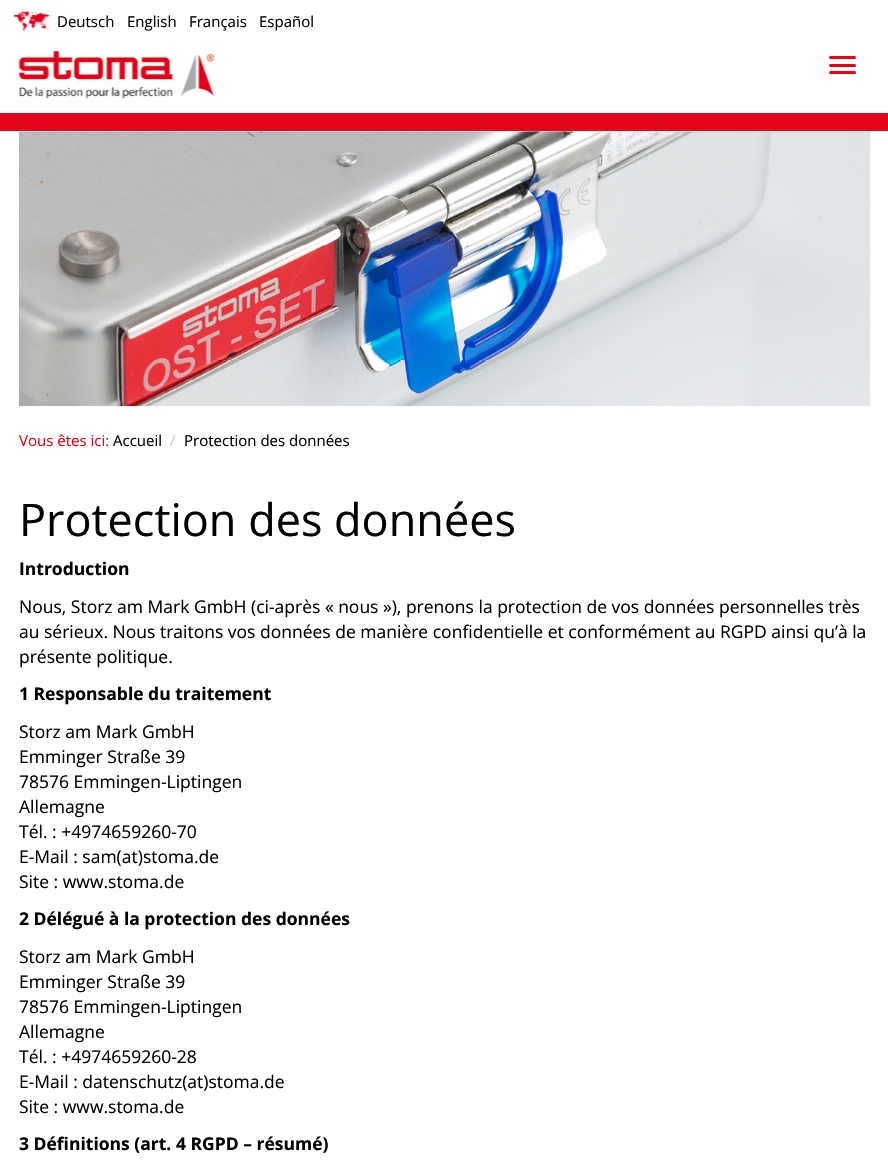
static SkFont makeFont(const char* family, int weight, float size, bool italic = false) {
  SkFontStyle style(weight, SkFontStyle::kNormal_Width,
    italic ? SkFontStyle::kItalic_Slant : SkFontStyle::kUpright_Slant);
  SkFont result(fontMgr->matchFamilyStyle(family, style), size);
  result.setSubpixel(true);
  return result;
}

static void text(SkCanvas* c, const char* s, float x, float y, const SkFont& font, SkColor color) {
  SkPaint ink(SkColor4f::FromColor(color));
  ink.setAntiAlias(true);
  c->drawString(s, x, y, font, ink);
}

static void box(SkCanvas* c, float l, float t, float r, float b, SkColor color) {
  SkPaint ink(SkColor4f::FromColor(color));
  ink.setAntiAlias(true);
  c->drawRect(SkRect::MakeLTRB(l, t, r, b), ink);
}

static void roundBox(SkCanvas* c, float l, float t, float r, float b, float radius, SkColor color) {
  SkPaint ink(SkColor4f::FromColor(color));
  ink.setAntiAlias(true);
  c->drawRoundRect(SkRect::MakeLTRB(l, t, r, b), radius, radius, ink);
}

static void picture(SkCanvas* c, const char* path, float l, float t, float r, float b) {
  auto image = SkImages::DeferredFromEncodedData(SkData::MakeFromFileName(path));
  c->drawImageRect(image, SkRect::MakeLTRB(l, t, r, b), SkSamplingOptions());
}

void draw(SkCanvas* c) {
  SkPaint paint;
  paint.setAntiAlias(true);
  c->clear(0xffffffff);
  picture(c, "img_01.png", 13, 11, 50, 31);
  SkFont face1 = makeFont("Open Sans", 400, 15);
  text(c, "Deutsch", 57, 27, face1, 0xff000000);
  text(c, "English", 127, 27, face1, 0xff000000);
  text(c, "Français", 189, 27, face1, 0xff000000);
  text(c, "Español", 259, 27, face1, 0xff000000);
  picture(c, "img_02.png", 18, 51, 215, 99);
  roundBox(c, 829, 56, 856, 59, 1.5f, 0xffe40614);
  roundBox(c, 829, 64, 856, 67, 1.5f, 0xffe40614);
  roundBox(c, 829, 71, 856, 74, 1.5f, 0xffe40614);
  box(c, 0, 113, 888, 131, 0xffe3051b);
  picture(c, "img_03.png", 18, 131, 870, 407);
  text(c, "Vous êtes ici:", 19, 446, face1, 0xffe40614);
  text(c, "Accueil", 113, 446, face1, 0xff000000);
  text(c, "/", 170, 446, face1, 0xffcccccc);
  text(c, "Protection des données", 184, 446, face1, 0xff000000);
  SkFont face2 = makeFont("Open Sans", 400, 45);
  text(c, "Protection des données", 19, 536, face2, 0xff000000);
  SkFont face3 = makeFont("Open Sans", 700, 17.5f);
  text(c, "Introduction", 19, 575, face3, 0xff000000);
  SkFont face4 = makeFont("Open Sans", 400, 17.5f);
  text(c, "Nous, Storz am Mark GmbH (ci-après « nous »), prenons la protection de vos données personnelles très", 19, 613, face4, 0xff000000);
  text(c, "au sérieux. Nous traitons vos données de manière confidentielle et conformément au RGPD ainsi qu’à la", 19, 638, face4, 0xff000000);
  text(c, "présente politique.", 19, 663, face4, 0xff000000);
  text(c, "1 Responsable du traitement", 19, 700, face3, 0xff000000);
  text(c, "Storz am Mark GmbH", 19, 738, face4, 0xff000000);
  text(c, "Emminger Straße 39", 19, 763, face4, 0xff000000);
  text(c, "78576 Emmingen-Liptingen", 19, 788, face4, 0xff000000);
  text(c, "Allemagne", 19, 813, face4, 0xff000000);
  text(c, "Tél. : +4974659260-70", 19, 838, face4, 0xff000000);
  text(c, "E-Mail : sam(at)stoma.de", 19, 863, face4, 0xff000000);
  text(c, "Site : www.stoma.de", 19, 888, face4, 0xff000000);
  text(c, "2 Délégué à la protection des données", 19, 925, face3, 0xff000000);
  text(c, "Storz am Mark GmbH", 19, 963, face4, 0xff000000);
  text(c, "Emminger Straße 39", 19, 988, face4, 0xff000000);
  text(c, "78576 Emmingen-Liptingen", 19, 1013, face4, 0xff000000);
  text(c, "Allemagne", 19, 1038, face4, 0xff000000);
  text(c, "Tél. : +4974659260-28", 19, 1063, face4, 0xff000000);
  text(c, "E-Mail : datenschutz(at)stoma.de", 19, 1088, face4, 0xff000000);
  text(c, "Site : www.stoma.de", 19, 1113, face4, 0xff000000);
  text(c, "3 Définitions (art. 4 RGPD – résumé)", 19, 1150, face3, 0xff000000);
}
